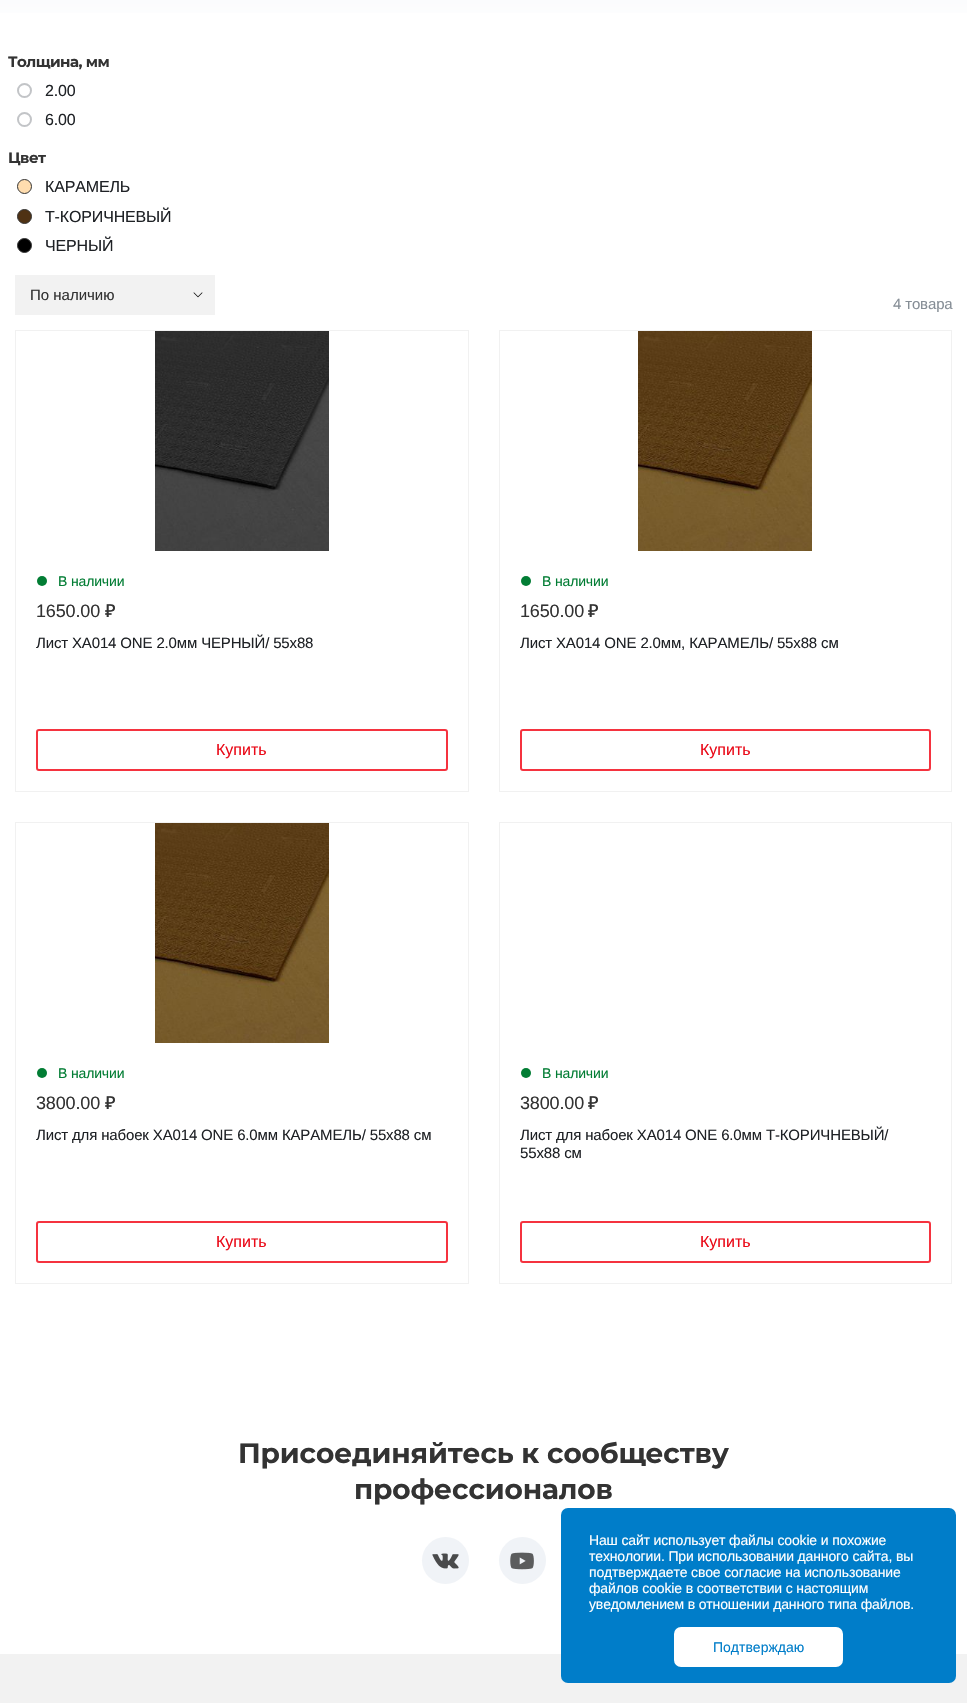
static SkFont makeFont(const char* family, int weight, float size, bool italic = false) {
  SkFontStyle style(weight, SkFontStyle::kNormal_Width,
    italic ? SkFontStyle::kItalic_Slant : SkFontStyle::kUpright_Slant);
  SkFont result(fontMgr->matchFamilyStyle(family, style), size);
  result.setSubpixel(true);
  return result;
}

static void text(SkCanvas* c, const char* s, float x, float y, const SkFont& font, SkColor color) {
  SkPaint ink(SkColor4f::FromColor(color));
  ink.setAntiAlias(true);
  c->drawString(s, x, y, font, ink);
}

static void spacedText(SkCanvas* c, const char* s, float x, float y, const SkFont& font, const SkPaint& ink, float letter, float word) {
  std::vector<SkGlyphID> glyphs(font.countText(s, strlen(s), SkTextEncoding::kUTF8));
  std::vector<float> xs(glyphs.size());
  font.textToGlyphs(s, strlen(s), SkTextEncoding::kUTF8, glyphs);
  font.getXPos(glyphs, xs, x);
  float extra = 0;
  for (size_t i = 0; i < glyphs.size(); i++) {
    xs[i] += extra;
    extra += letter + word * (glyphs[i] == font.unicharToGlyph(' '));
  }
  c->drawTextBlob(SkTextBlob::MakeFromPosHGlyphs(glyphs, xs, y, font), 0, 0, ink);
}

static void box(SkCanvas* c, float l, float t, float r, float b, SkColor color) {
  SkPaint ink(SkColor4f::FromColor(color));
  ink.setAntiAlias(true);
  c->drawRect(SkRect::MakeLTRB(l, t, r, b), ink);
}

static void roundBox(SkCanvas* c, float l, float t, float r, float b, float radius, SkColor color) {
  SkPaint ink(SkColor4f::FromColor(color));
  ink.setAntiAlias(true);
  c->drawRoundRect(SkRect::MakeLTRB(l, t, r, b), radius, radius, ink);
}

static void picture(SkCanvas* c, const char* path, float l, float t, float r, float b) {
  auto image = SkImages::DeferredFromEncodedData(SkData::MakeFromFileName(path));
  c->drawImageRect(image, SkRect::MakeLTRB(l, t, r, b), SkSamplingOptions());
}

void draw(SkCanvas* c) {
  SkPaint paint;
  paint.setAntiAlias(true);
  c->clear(0xffffffff);
  {
    const SkColor colors[] = {0xfff0f3f7, 0xffffffff};
    const float stops[] = {0, 1};
    const SkPoint ends[] = {{484, -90}, {484, 33}};
    paint.setShader(SkGradientShader::MakeLinear(ends, colors, stops, 2, SkTileMode::kClamp));
    paint.setAlpha(255);
  }
  c->drawRect(SkRect::MakeLTRB(0, 0, 967, 13), paint);
  SkFont face1 = makeFont("Montserrat", 700, 15);
  paint.setShader(nullptr);
  paint.setColor(0xff333333);
  spacedText(c, "Толщина, мм", 8, 67, face1, paint, -0.5f, 0);
  paint.setStyle(SkPaint::kStroke_Style);
  paint.setStrokeWidth(2);
  paint.setColor(0xffc2c4c7);
  c->drawCircle(24.5f, 90.5f, 6.5f, paint);
  SkFont face2 = makeFont("Liberation Sans", 400, 16);
  paint.setStyle(SkPaint::kFill_Style);
  paint.setColor(0xff1f2226);
  spacedText(c, "2.00", 45, 96, face2, paint, -0.15f, 0);
  paint.setStyle(SkPaint::kStroke_Style);
  paint.setColor(0xffc2c4c7);
  c->drawCircle(24.5f, 119.5f, 6.5f, paint);
  paint.setStyle(SkPaint::kFill_Style);
  paint.setColor(0xff1f2226);
  spacedText(c, "6.00", 45, 125, face2, paint, -0.15f, 0);
  paint.setColor(0xff333333);
  spacedText(c, "Цвет", 8, 163, face1, paint, -0.5f, 0);
  paint.setColor(0xffffddaf);
  c->drawCircle(24.5f, 186.5f, 7, paint);
  paint.setStyle(SkPaint::kStroke_Style);
  paint.setStrokeWidth(1);
  paint.setColor(0xff333333);
  c->drawCircle(24.5f, 186.5f, 7, paint);
  paint.setStyle(SkPaint::kFill_Style);
  paint.setColor(0xff1f2226);
  spacedText(c, "КАРАМЕЛЬ", 45, 192, face2, paint, -0.15f, 0);
  paint.setColor(0xff4f3214);
  c->drawCircle(24.5f, 216.5f, 7, paint);
  paint.setStyle(SkPaint::kStroke_Style);
  paint.setColor(0xff333333);
  c->drawCircle(24.5f, 216.5f, 7, paint);
  paint.setStyle(SkPaint::kFill_Style);
  paint.setColor(0xff1f2226);
  spacedText(c, "Т-КОРИЧНЕВЫЙ", 45, 222, face2, paint, -0.15f, 0);
  paint.setColor(0xff000000);
  c->drawCircle(24.5f, 245.5f, 7, paint);
  paint.setStyle(SkPaint::kStroke_Style);
  paint.setColor(0xff333333);
  c->drawCircle(24.5f, 245.5f, 7, paint);
  paint.setStyle(SkPaint::kFill_Style);
  paint.setColor(0xff1f2226);
  spacedText(c, "ЧЕРНЫЙ", 45, 251, face2, paint, -0.15f, 0);
  box(c, 15, 275, 215, 315, 0xfff2f2f2);
  picture(c, "img_01.png", 193, 292, 203, 298);
  SkFont face3 = makeFont("Liberation Sans", 400, 15);
  text(c, "По наличию", 30, 300, face3, 0xff333333);
  paint.setColor(0xff868e96);
  spacedText(c, "4 товара", 893, 309, face3, paint, -0.15f, 0);
  paint.setStyle(SkPaint::kStroke_Style);
  paint.setColor(0xfff1f1f1);
  c->drawRect(SkRect::MakeLTRB(15.5f, 330.5f, 468.5f, 791.5f), paint);
  picture(c, "img_02.png", 155, 331, 329, 551);
  picture(c, "img_03.png", 37, 576, 47, 586);
  SkFont face4 = makeFont("Liberation Sans", 400, 14);
  paint.setStyle(SkPaint::kFill_Style);
  paint.setColor(0xff027d34);
  spacedText(c, "В наличии", 58, 586, face4, paint, -0.15f, 0);
  SkFont face5 = makeFont("Liberation Sans", 400, 18);
  paint.setColor(0xff333333);
  spacedText(c, "1650.00", 36, 617, face5, paint, -0.15f, 0);
  SkFont face6 = makeFont("Noto Sans", 500, 18);
  spacedText(c, "₽", 105, 617, face6, paint, -0.15f, 0);
  paint.setColor(0xff1f2226);
  spacedText(c, "Лист XA014 ONE 2.0мм ЧЕРНЫЙ/ 55х88", 36, 648, face3, paint, -0.15f, 0);
  paint.setStyle(SkPaint::kStroke_Style);
  paint.setStrokeWidth(2);
  paint.setColor(0xfff5333f);
  c->drawRoundRect(SkRect::MakeLTRB(37, 730, 447, 770), 2, 2, paint);
  text(c, "Купить", 216, 755, face2, 0xffea0b19);
  paint.setStrokeWidth(1);
  paint.setColor(0xfff1f1f1);
  c->drawRect(SkRect::MakeLTRB(499.5f, 330.5f, 951.5f, 791.5f), paint);
  picture(c, "img_04.png", 638, 331, 812, 551);
  picture(c, "img_03.png", 521, 576, 531, 586);
  paint.setStyle(SkPaint::kFill_Style);
  paint.setColor(0xff027d34);
  spacedText(c, "В наличии", 542, 586, face4, paint, -0.15f, 0);
  paint.setColor(0xff333333);
  spacedText(c, "1650.00", 520, 617, face5, paint, -0.15f, 0);
  spacedText(c, "₽", 588, 617, face6, paint, -0.15f, 0);
  paint.setColor(0xff1f2226);
  spacedText(c, "Лист XA014 ONE 2.0мм, КАРАМЕЛЬ/ 55х88 см", 520, 648, face3, paint, -0.15f, 0);
  paint.setStyle(SkPaint::kStroke_Style);
  paint.setStrokeWidth(2);
  paint.setColor(0xfff5333f);
  c->drawRoundRect(SkRect::MakeLTRB(521, 730, 930, 770), 2, 2, paint);
  text(c, "Купить", 700, 755, face2, 0xffea0b19);
  paint.setStrokeWidth(1);
  paint.setColor(0xfff1f1f1);
  c->drawRect(SkRect::MakeLTRB(15.5f, 822.5f, 468.5f, 1283.5f), paint);
  picture(c, "img_05.png", 155, 823, 329, 1043);
  picture(c, "img_03.png", 37, 1068, 47, 1078);
  paint.setStyle(SkPaint::kFill_Style);
  paint.setColor(0xff027d34);
  spacedText(c, "В наличии", 58, 1078, face4, paint, -0.15f, 0);
  paint.setColor(0xff333333);
  spacedText(c, "3800.00", 36, 1109, face5, paint, -0.15f, 0);
  spacedText(c, "₽", 105, 1109, face6, paint, -0.15f, 0);
  paint.setColor(0xff1f2226);
  spacedText(c, "Лист для набоек XA014 ONE 6.0мм КАРАМЕЛЬ/ 55х88 см", 36, 1140, face3, paint, -0.15f, 0);
  paint.setStyle(SkPaint::kStroke_Style);
  paint.setStrokeWidth(2);
  paint.setColor(0xfff5333f);
  c->drawRoundRect(SkRect::MakeLTRB(37, 1222, 447, 1262), 2, 2, paint);
  text(c, "Купить", 216, 1247, face2, 0xffea0b19);
  paint.setStrokeWidth(1);
  paint.setColor(0xfff1f1f1);
  c->drawRect(SkRect::MakeLTRB(499.5f, 822.5f, 951.5f, 1283.5f), paint);
  picture(c, "img_03.png", 521, 1068, 531, 1078);
  paint.setStyle(SkPaint::kFill_Style);
  paint.setColor(0xff027d34);
  spacedText(c, "В наличии", 542, 1078, face4, paint, -0.15f, 0);
  paint.setColor(0xff333333);
  spacedText(c, "3800.00", 520, 1109, face5, paint, -0.15f, 0);
  spacedText(c, "₽", 588, 1109, face6, paint, -0.15f, 0);
  paint.setColor(0xff1f2226);
  spacedText(c, "Лист для набоек XA014 ONE 6.0мм Т-КОРИЧНЕВЫЙ/", 520, 1140, face3, paint, -0.15f, 0);
  spacedText(c, "55х88 см", 520, 1158, face3, paint, -0.15f, 0);
  paint.setStyle(SkPaint::kStroke_Style);
  paint.setStrokeWidth(2);
  paint.setColor(0xfff5333f);
  c->drawRoundRect(SkRect::MakeLTRB(521, 1222, 930, 1262), 2, 2, paint);
  text(c, "Купить", 700, 1247, face2, 0xffea0b19);
  SkFont face7 = makeFont("Montserrat", 700, 28);
  paint.setStyle(SkPaint::kFill_Style);
  paint.setColor(0xff333333);
  spacedText(c, "Присоединяйтесь к сообществу", 238, 1463, face7, paint, -0.15f, 0);
  spacedText(c, "профессионалов", 354, 1499, face7, paint, -0.15f, 0);
  paint.setColor(0xfff0f3f7);
  c->drawCircle(445.5f, 1560.5f, 23.5f, paint);
  picture(c, "img_06.png", 432, 1553, 459, 1569);
  c->drawCircle(522.5f, 1560.5f, 23.5f, paint);
  picture(c, "img_07.png", 510, 1552, 534, 1570);
  box(c, 0, 1654, 967, 1703, 0xfff2f2f2);
  roundBox(c, 561, 1508, 956, 1683, 7, 0xff007dc9);
  paint.setColor(0xffffffff);
  spacedText(c, "Наш сайт использует файлы cookie и похожие", 589, 1545, face4, paint, -0.15f, 0);
  spacedText(c, "технологии. При использовании данного сайта, вы", 589, 1561, face4, paint, -0.15f, 0);
  spacedText(c, "подтверждаете свое согласие на использование", 589, 1577, face4, paint, -0.15f, 0);
  spacedText(c, "файлов cookie в соответствии с настоящим", 589, 1593, face4, paint, -0.15f, 0);
  spacedText(c, "уведомлением в отношении данного типа файлов.", 589, 1609, face4, paint, -0.15f, 0);
  c->drawRoundRect(SkRect::MakeLTRB(675, 1628, 842, 1666), 6, 6, paint);
  paint.setStyle(SkPaint::kStroke_Style);
  c->drawRoundRect(SkRect::MakeLTRB(675, 1628, 842, 1666), 6, 6, paint);
  text(c, "Подтверждаю", 713, 1652, face4, 0xff007dc9);
}
